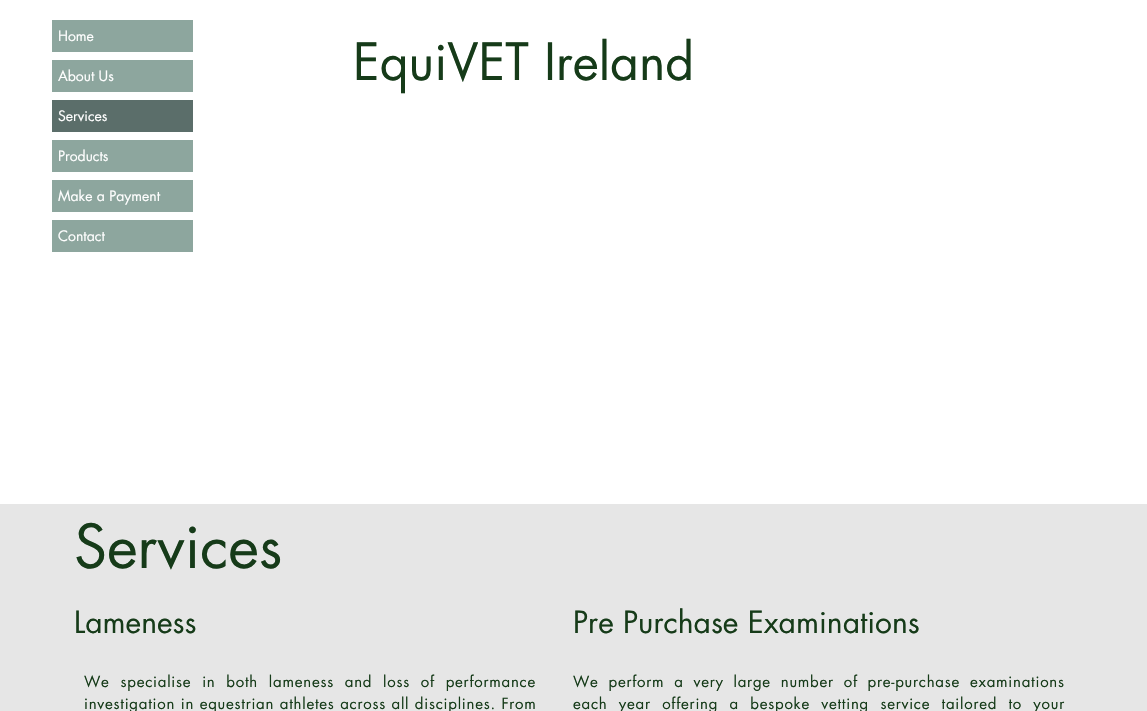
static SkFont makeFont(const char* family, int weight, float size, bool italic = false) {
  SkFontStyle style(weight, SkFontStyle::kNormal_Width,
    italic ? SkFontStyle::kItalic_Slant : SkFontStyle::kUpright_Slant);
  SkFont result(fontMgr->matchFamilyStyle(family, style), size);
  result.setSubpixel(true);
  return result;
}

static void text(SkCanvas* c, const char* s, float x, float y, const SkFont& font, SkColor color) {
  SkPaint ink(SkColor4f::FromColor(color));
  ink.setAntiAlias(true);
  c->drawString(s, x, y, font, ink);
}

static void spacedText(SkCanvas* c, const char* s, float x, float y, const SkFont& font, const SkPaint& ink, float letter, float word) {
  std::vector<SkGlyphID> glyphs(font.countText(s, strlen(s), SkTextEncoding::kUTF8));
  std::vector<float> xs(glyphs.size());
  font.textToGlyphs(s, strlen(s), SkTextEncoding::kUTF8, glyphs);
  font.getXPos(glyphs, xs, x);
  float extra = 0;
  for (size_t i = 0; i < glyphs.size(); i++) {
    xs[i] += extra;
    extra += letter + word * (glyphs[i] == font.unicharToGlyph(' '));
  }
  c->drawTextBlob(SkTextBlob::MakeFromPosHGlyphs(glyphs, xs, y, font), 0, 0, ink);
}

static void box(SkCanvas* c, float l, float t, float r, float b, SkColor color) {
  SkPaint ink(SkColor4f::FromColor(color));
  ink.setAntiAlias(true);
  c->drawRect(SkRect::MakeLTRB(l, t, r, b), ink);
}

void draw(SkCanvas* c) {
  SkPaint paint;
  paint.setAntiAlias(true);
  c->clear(0xffffffff);
  box(c, 52, 20, 193, 52, 0xff8da69e);
  SkFont face1 = makeFont("futura", 400, 14);
  text(c, "Home", 58, 41, face1, 0xffffffff);
  box(c, 52, 60, 193, 92, 0xff8da69e);
  text(c, "About Us", 58, 81, face1, 0xffffffff);
  box(c, 52, 100, 193, 132, 0xff5b6e6a);
  text(c, "Services", 58, 121, face1, 0xffffffff);
  box(c, 52, 140, 193, 172, 0xff8da69e);
  text(c, "Products", 58, 161, face1, 0xffffffff);
  box(c, 52, 180, 193, 212, 0xff8da69e);
  text(c, "Make a Payment", 58, 201, face1, 0xffffffff);
  box(c, 52, 220, 193, 252, 0xff8da69e);
  text(c, "Contact", 58, 241, face1, 0xffffffff);
  SkFont face2 = makeFont("futura", 400, 50);
  text(c, "EquiVET Ireland", 353, 80, face2, 0xff163b19);
  box(c, 0, 504, 1147, 711, 0xffe6e6e6);
  SkFont face3 = makeFont("futura", 400, 59);
  text(c, "Services", 74, 568, face3, 0xff163b19);
  SkFont face4 = makeFont("futura", 400, 30);
  text(c, "Lameness", 74, 633, face4, 0xff163b19);
  text(c, "Pre Purchase Examinations", 573, 633, face4, 0xff163b19);
  SkFont face5 = makeFont("futura", 400, 15);
  paint.setColor(0xff163b19);
  spacedText(c, "We specialise in both lameness and loss of performance", 84, 687, face5, paint, 0.75f, 5.5f);
  spacedText(c, "investigation in equestrian athletes across all disciplines. From", 84, 709, face5, paint, 0.75f, 0.25f);
  spacedText(c, "We perform a very large number of pre-purchase examinations", 573, 687, face5, paint, 0.75f, 4.5f);
  spacedText(c, "each year offering a bespoke vetting service tailored to your", 573, 709, face5, paint, 0.75f, 6);
}
